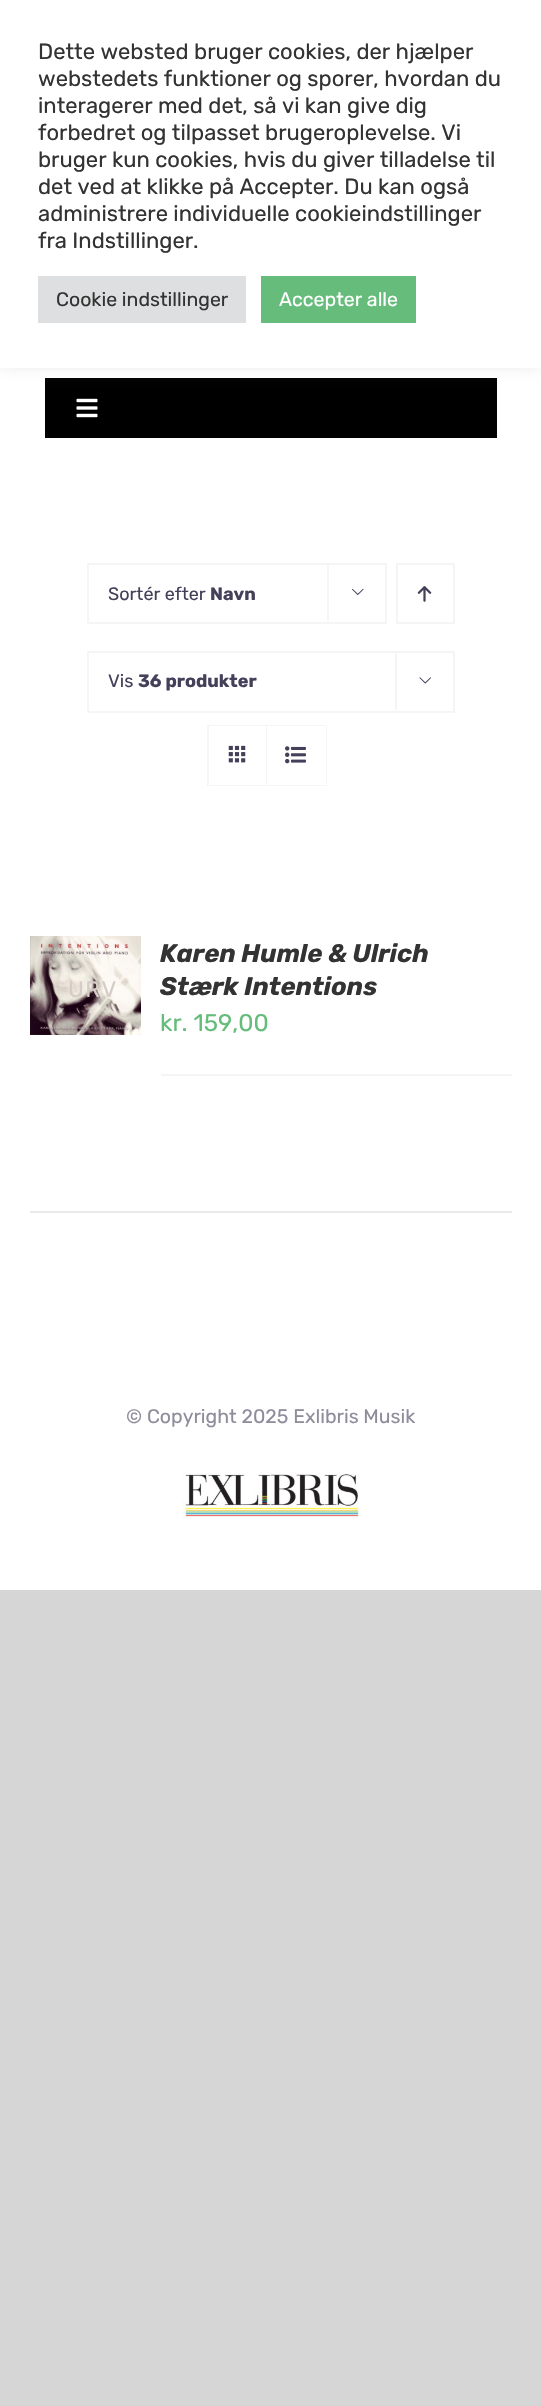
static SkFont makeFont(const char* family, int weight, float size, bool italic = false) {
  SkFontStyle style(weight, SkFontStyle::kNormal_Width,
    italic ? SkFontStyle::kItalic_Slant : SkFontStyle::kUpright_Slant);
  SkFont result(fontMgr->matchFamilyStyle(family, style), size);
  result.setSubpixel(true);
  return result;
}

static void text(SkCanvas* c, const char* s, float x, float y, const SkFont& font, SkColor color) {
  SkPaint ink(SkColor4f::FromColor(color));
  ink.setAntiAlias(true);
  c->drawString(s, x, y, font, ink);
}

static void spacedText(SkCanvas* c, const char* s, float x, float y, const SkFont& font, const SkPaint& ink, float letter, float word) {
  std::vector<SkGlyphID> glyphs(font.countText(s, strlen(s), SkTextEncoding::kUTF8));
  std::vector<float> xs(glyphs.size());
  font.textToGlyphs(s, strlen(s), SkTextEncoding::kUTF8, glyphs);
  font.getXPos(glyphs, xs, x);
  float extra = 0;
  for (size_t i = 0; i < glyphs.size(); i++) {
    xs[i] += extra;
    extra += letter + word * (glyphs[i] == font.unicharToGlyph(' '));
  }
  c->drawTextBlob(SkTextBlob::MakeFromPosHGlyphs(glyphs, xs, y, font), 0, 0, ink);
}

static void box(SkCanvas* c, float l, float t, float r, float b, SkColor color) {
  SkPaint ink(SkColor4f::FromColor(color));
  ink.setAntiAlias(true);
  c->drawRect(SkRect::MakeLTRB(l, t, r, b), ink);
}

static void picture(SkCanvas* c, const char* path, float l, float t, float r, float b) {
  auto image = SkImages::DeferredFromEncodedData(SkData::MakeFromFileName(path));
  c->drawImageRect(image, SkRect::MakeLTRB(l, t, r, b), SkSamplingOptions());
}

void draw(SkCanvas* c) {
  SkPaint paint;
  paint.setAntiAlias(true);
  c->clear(0xffd7d6d6);
  box(c, 0, 368, 541, 1590, 0xffffffff);
  box(c, 45, 378, 497, 438, 0xff000000);
  paint.setColor(0x4dacabab);
  paint.setMaskFilter(SkMaskFilter::MakeBlur(kNormal_SkBlurStyle, 7.5f));
  c->drawRect(SkRect::MakeLTRB(0, -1, 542, 366), paint);
  paint.setMaskFilter(nullptr);
  box(c, 0, 0, 541, 368, 0xffffffff);
  SkFont face1 = makeFont("Rubik", 400, 22);
  text(c, "Dette websted bruger cookies, der hjælper", 38, 59, face1, 0xff333333);
  text(c, "webstedets funktioner og sporer, hvordan du", 38, 86, face1, 0xff333333);
  text(c, "interagerer med det, så vi kan give dig", 38, 113, face1, 0xff333333);
  text(c, "forbedret og tilpasset brugeroplevelse. Vi", 38, 140, face1, 0xff333333);
  text(c, "bruger kun cookies, hvis du giver tilladelse til", 38, 167, face1, 0xff333333);
  text(c, "det ved at klikke på Accepter. Du kan også", 38, 194, face1, 0xff333333);
  text(c, "administrere individuelle cookieindstillinger", 38, 221, face1, 0xff333333);
  text(c, "fra Indstillinger.", 38, 248, face1, 0xff333333);
  box(c, 38, 276, 246, 323, 0xffdedfe0);
  SkFont face2 = makeFont("Rubik", 400, 19.5f);
  text(c, "Cookie indstillinger", 56, 306, face2, 0xff333333);
  box(c, 261, 276, 416, 323, 0xff65bc7b);
  text(c, "Accepter alle", 279, 306, face2, 0xffffffff);
  picture(c, "img_01.png", 76, 398, 98, 418);
  paint.setStyle(SkPaint::kStroke_Style);
  paint.setStrokeWidth(2);
  paint.setColor(0xfff6f4f5);
  c->drawRect(SkRect::MakeLTRB(88, 564, 386, 623), paint);
  SkFont face3 = makeFont("Rubik", 400, 18);
  text(c, "Sortér efter", 108, 600, face3, 0xff44405a);
  SkFont face4 = makeFont("Rubik", 700, 18);
  text(c, "Navn", 210, 600, face4, 0xff44405a);
  box(c, 327, 563, 329, 621, 0xfff6f4f5);
  picture(c, "img_02.png", 352, 588, 364, 595);
  c->drawRect(SkRect::MakeLTRB(397, 564, 454, 623), paint);
  picture(c, "img_03.png", 417, 586, 432, 602);
  c->drawRect(SkRect::MakeLTRB(88, 652, 454, 712), paint);
  text(c, "Vis", 108, 687, face3, 0xff44405a);
  text(c, "36 produkter", 138, 687, face4, 0xff44405a);
  box(c, 395, 651, 397, 710, 0xfff6f4f5);
  picture(c, "img_04.png", 419, 677, 431, 684);
  c->drawRect(SkRect::MakeLTRB(208, 726, 326, 785), paint);
  box(c, 209, 726, 266, 785, 0xffffffff);
  box(c, 266, 726, 267, 785, 0xfff6f4f5);
  picture(c, "img_05.png", 228, 745, 246, 763);
  box(c, 267, 726, 326, 785, 0xffffffff);
  picture(c, "img_06.png", 285, 746, 306, 764);
  box(c, 30, 1211, 512, 1213, 0xffebeaea);
  picture(c, "img_07.png", 30, 936, 141, 1035);
  SkFont face5 = makeFont("Rubik", 400, 22.5f);
  paint.setStyle(SkPaint::kFill_Style);
  paint.setColor(0xffd5ccc6);
  spacedText(c, "URV", 68, 997, face5, paint, 1.5f, 0);
  text(c, "/", 80, 1031, face5, 0xffb2a7a3);
  SkFont face6 = makeFont("Rubik", 700, 25.5f, true);
  text(c, "Karen Humle & Ulrich", 160, 962, face6, 0xff333333);
  text(c, "Stærk Intentions", 160, 995, face6, 0xff333333);
  SkFont face7 = makeFont("Rubik", 400, 24);
  text(c, "kr. 159,00", 160, 1031, face7, 0xff65bc7b);
  box(c, 161, 1074, 512, 1076, 0xfff6f4f5);
  text(c, "© Copyright 2025 Exlibris Musik", 126, 1423, face2, 0xff8f8c9c);
  picture(c, "img_08.png", 182, 1473, 359, 1518);
}
